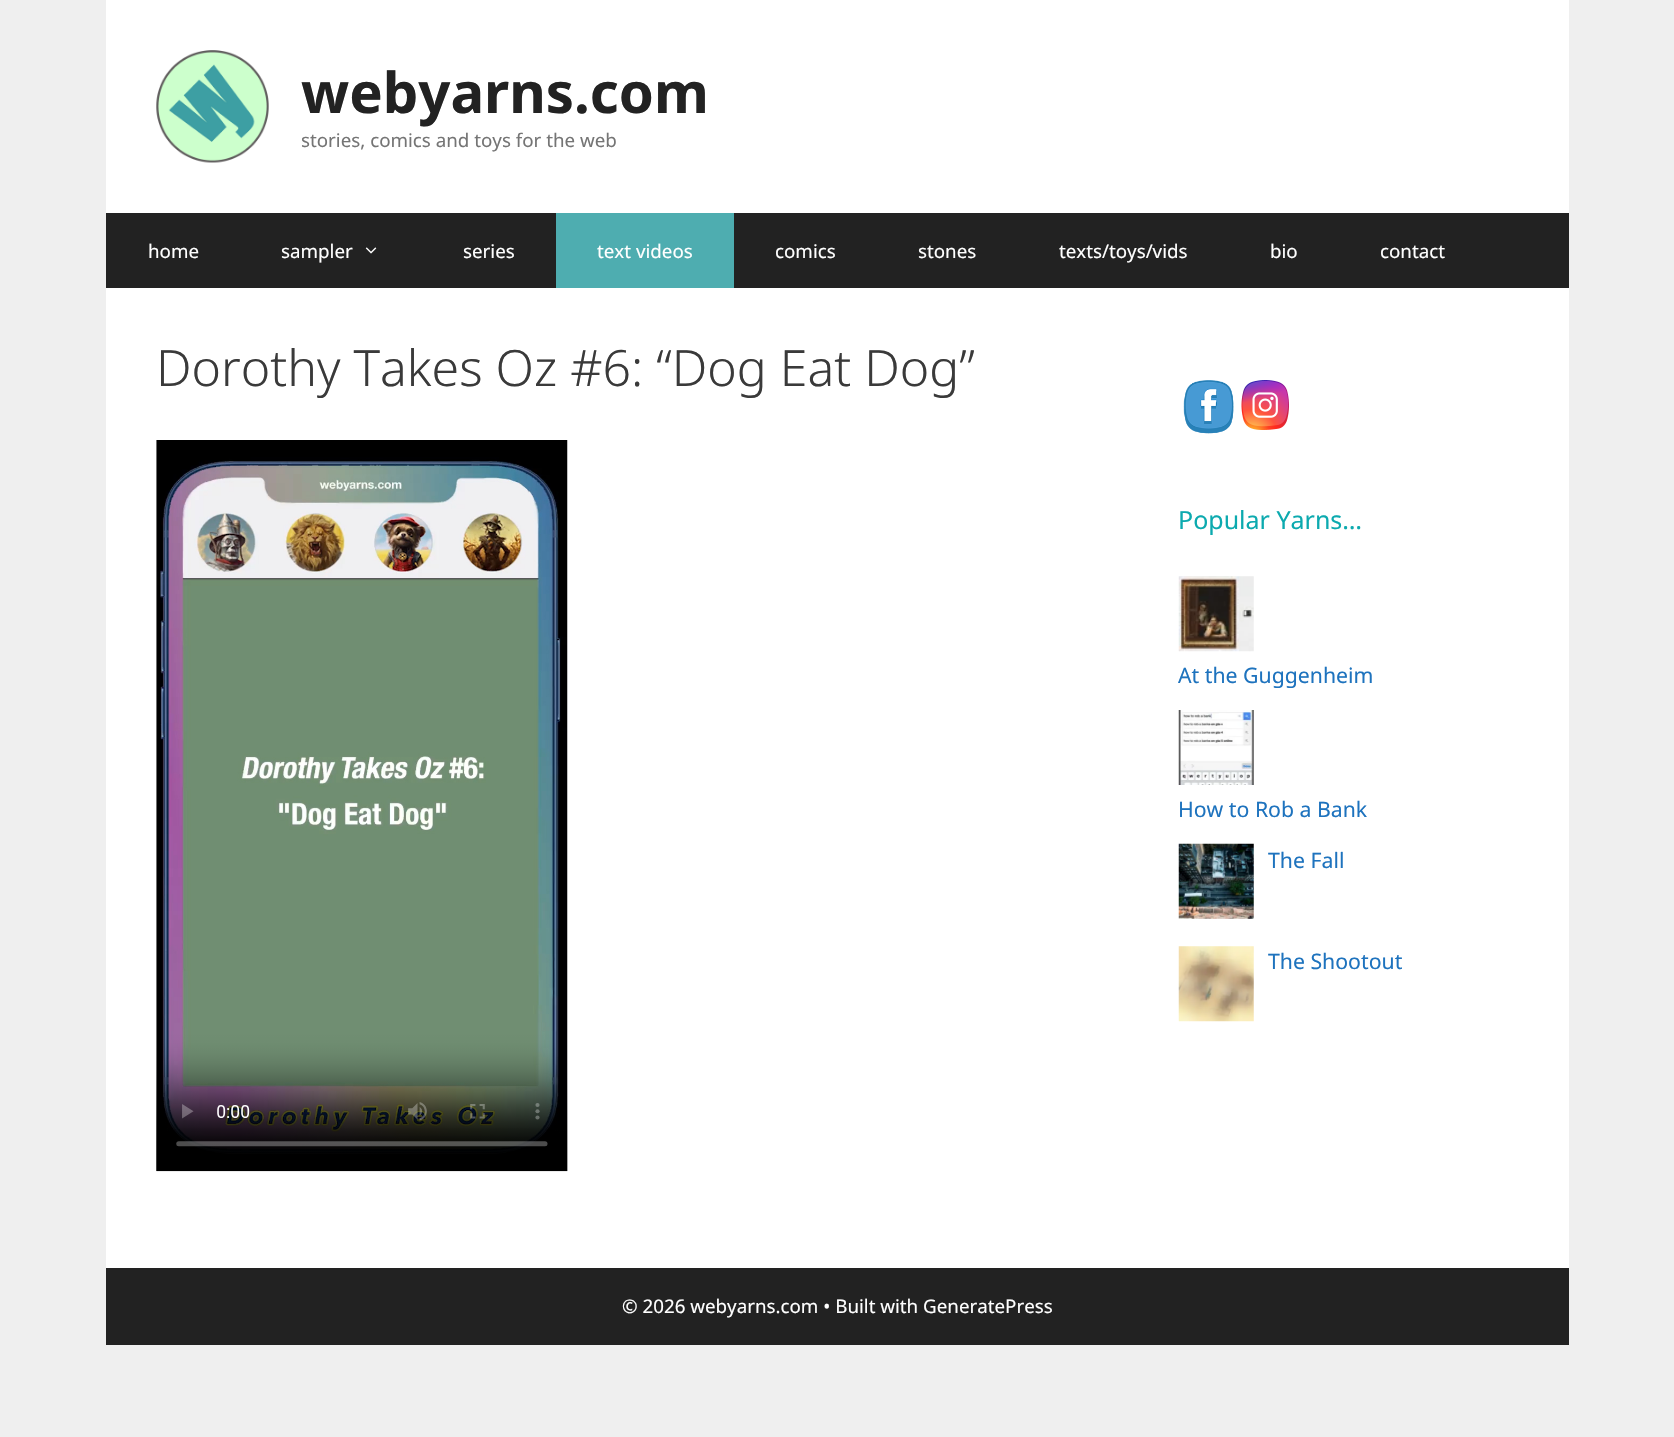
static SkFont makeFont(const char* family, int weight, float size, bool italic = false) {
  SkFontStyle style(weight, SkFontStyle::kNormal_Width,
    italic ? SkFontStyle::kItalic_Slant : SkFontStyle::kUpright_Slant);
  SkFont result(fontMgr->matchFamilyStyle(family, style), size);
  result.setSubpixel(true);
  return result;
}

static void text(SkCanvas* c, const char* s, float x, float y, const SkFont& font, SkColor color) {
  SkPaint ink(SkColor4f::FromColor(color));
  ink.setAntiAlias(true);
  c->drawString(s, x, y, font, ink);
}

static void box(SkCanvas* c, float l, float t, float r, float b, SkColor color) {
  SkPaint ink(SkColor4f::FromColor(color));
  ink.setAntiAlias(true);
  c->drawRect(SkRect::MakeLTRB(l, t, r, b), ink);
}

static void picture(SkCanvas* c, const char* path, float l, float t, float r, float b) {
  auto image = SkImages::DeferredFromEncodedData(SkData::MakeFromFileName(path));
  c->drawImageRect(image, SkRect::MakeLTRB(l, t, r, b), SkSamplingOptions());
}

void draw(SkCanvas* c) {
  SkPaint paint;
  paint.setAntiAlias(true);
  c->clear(0xffefefef);
  box(c, 106, 0, 1569, 213, 0xffffffff);
  picture(c, "img_01.png", 156, 50, 269, 163);
  SkFont face1 = makeFont("Noto Sans", 700, 56.25f);
  text(c, "webyarns.com", 301, 113, face1, 0xff222222);
  SkFont face2 = makeFont("Noto Sans", 400, 18.75f);
  text(c, "stories, comics and toys for the web", 301, 147, face2, 0xff757575);
  box(c, 106, 213, 1569, 288, 0xff222222);
  text(c, "home", 148, 258, face2, 0xffffffff);
  text(c, "sampler", 281, 258, face2, 0xffffffff);
  picture(c, "img_02.png", 365, 247, 377, 254);
  text(c, "series", 463, 258, face2, 0xffffffff);
  box(c, 556, 213, 734, 288, 0xff4eadb0);
  text(c, "text videos", 597, 258, face2, 0xffffffff);
  text(c, "comics", 775, 258, face2, 0xffffffff);
  text(c, "stones", 918, 258, face2, 0xffffffff);
  text(c, "texts/toys/vids", 1059, 258, face2, 0xffffffff);
  text(c, "bio", 1270, 258, face2, 0xffffffff);
  text(c, "contact", 1380, 258, face2, 0xffffffff);
  box(c, 106, 288, 1569, 1268, 0xffffffff);
  SkFont face3 = makeFont("Noto Sans", 300, 50);
  text(c, "Dorothy Takes Oz #6: “Dog Eat Dog”", 156, 386, face3, 0xff3a3a3a);
  picture(c, "img_03.png", 156, 440, 568, 1172);
  picture(c, "img_04.png", 1183, 380, 1234, 434);
  picture(c, "img_05.png", 1241, 380, 1289, 430);
  SkFont face4 = makeFont("Noto Sans", 400, 25);
  text(c, "Popular Yarns…", 1178, 529, face4, 0xff0caaaf);
  picture(c, "img_06.png", 1178, 576, 1254, 652);
  SkFont face5 = makeFont("Noto Sans", 400, 21.25f);
  text(c, "At the Guggenheim", 1178, 683, face5, 0xff1e73be);
  picture(c, "img_07.png", 1178, 710, 1254, 785);
  text(c, "How to Rob a Bank", 1178, 817, face5, 0xff1e73be);
  picture(c, "img_08.png", 1178, 843, 1254, 919);
  text(c, "The Fall", 1268, 868, face5, 0xff1e73be);
  picture(c, "img_09.png", 1178, 946, 1254, 1022);
  text(c, "The Shootout", 1268, 969, face5, 0xff1e73be);
  box(c, 106, 1268, 1569, 1345, 0xff222222);
  text(c, "© 2026 webyarns.com • Built with GeneratePress", 622, 1313, face2, 0xffffffff);
}
